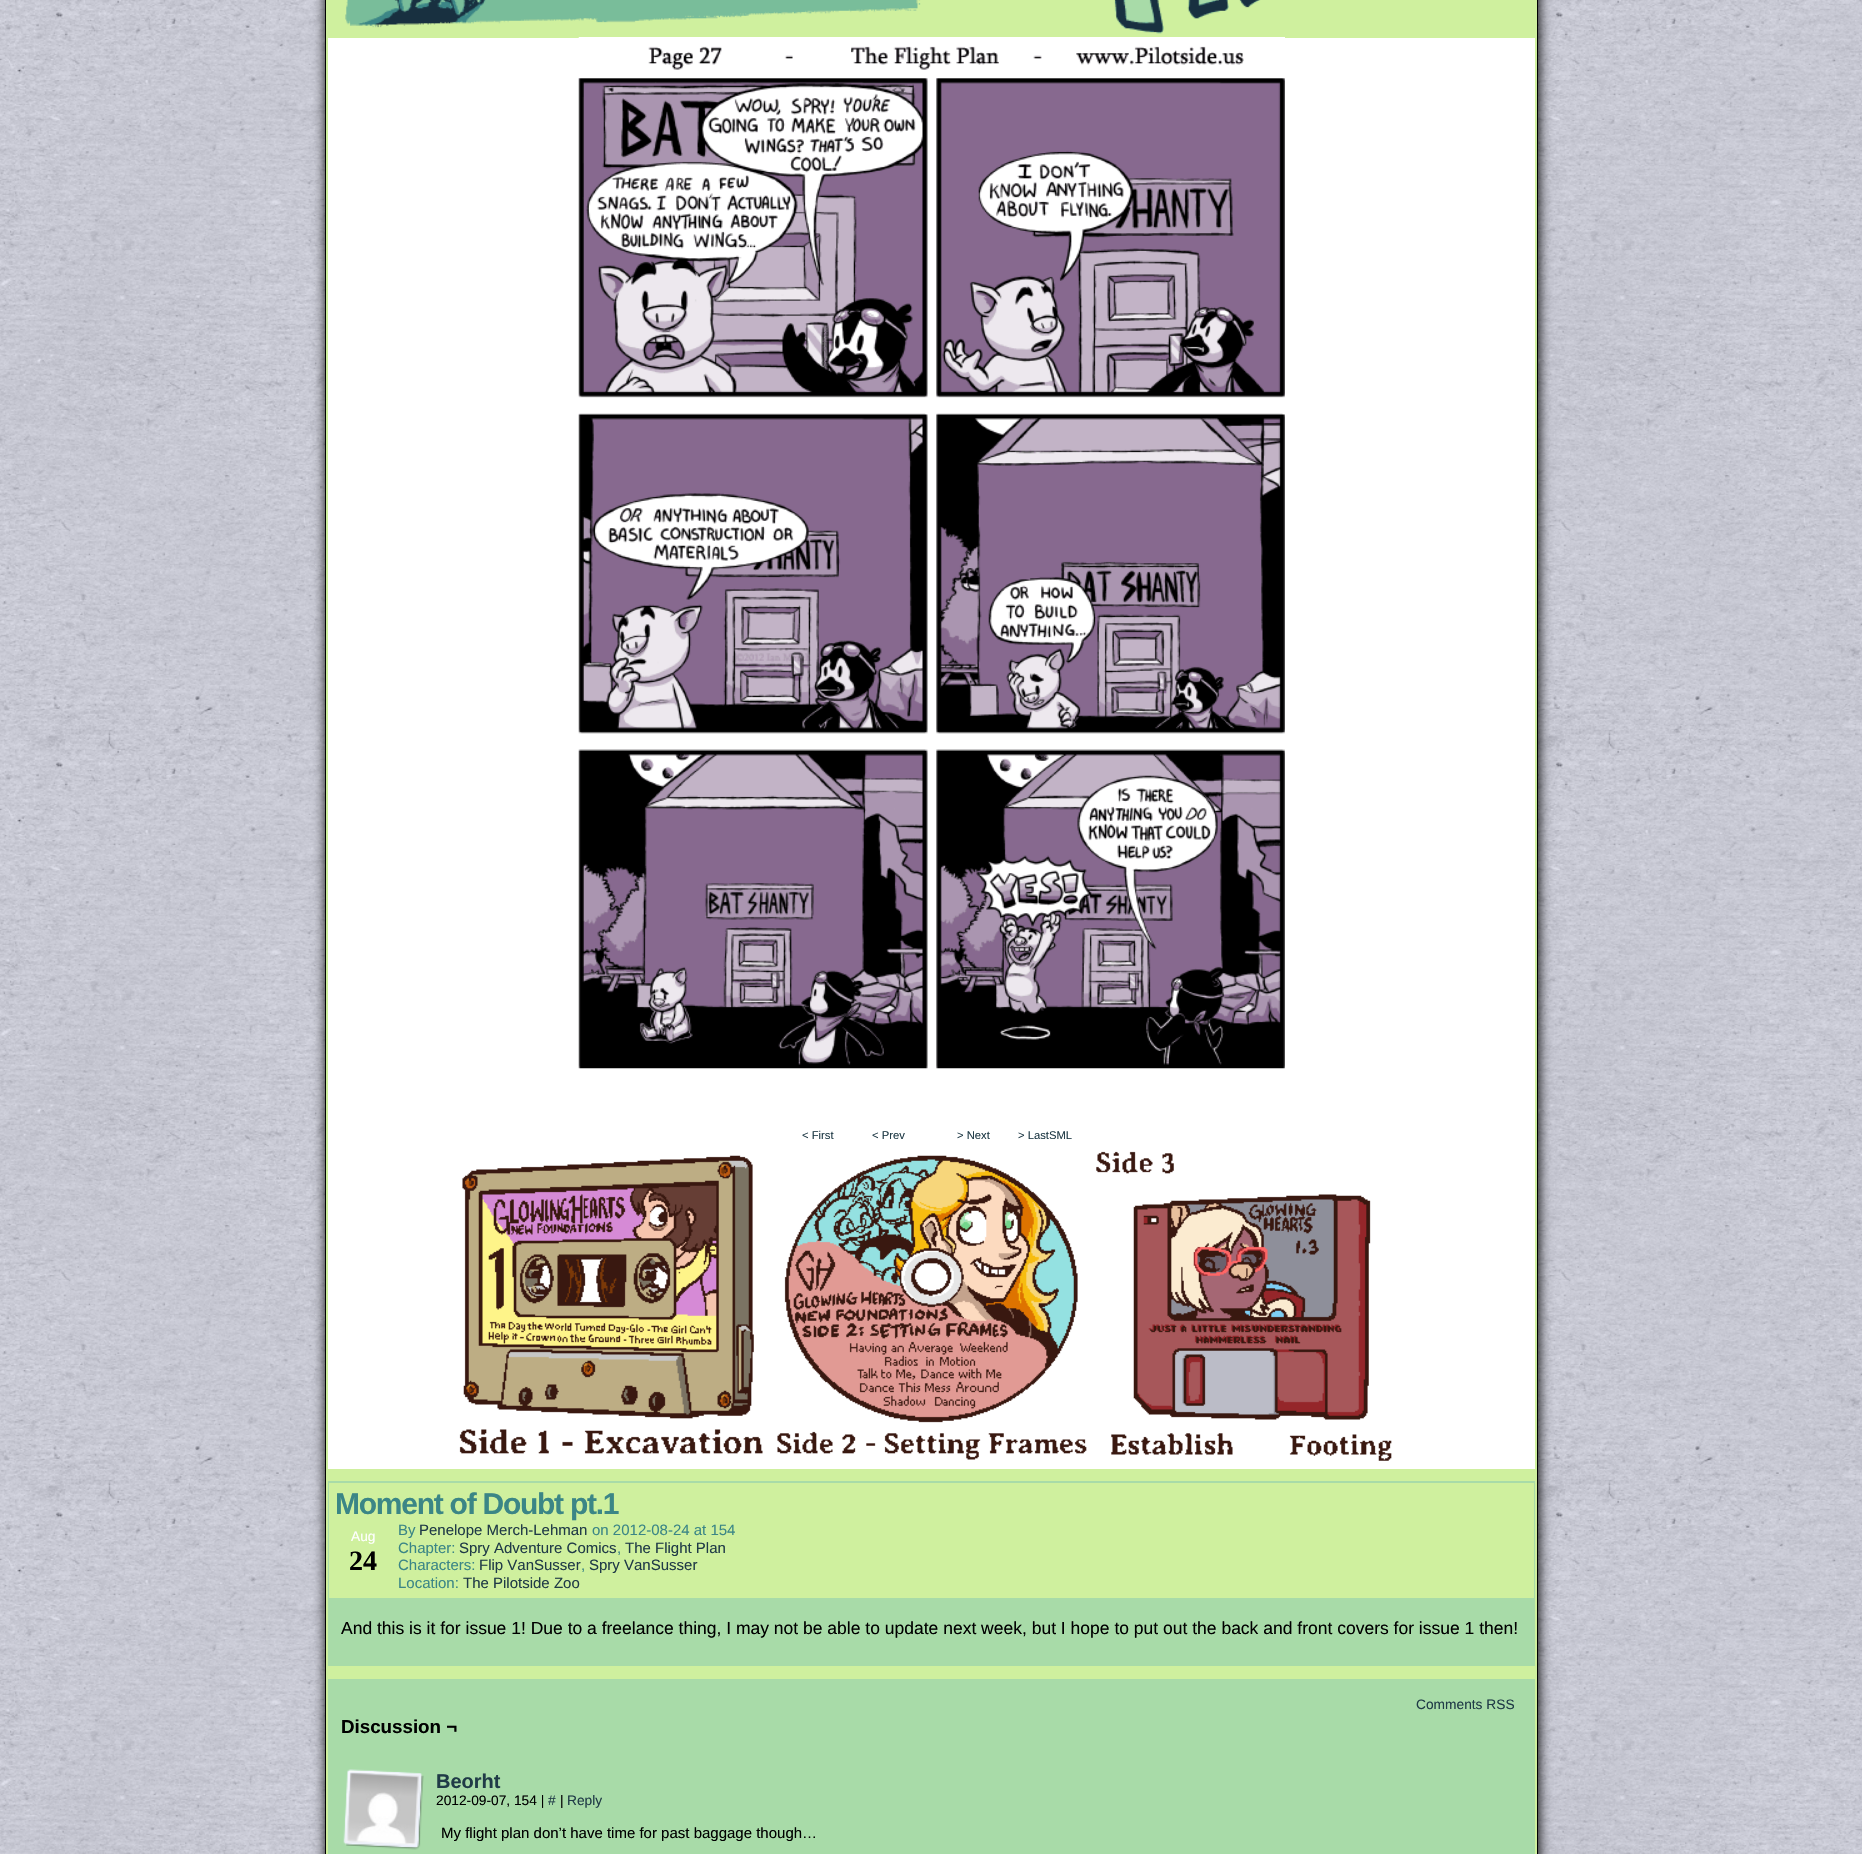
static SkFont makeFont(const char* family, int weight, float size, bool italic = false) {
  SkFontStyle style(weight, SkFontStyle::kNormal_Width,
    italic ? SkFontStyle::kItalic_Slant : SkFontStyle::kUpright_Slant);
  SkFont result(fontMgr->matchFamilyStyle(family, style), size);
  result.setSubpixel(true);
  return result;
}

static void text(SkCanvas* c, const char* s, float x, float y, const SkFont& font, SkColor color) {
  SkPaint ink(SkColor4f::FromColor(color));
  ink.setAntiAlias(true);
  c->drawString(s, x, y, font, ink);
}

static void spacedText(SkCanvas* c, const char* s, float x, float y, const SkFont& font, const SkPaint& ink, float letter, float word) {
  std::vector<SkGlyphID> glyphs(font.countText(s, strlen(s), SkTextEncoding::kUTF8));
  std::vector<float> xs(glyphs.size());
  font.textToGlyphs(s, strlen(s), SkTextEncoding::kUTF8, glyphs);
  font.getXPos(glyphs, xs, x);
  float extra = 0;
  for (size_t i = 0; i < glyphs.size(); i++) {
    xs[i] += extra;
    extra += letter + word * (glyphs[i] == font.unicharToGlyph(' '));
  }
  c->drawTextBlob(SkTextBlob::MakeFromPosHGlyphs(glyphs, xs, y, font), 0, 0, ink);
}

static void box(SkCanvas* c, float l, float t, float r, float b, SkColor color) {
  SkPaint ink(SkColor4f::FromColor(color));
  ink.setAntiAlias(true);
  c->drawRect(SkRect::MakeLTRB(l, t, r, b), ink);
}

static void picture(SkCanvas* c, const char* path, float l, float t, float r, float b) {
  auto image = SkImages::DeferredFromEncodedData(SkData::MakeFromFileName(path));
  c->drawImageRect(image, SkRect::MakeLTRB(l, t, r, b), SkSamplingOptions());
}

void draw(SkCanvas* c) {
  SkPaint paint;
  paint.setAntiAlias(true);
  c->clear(0xffffffff);
  picture(c, "img_01.png", 0, 0, 1862, 1854);
  paint.setColor(0xff000000);
  paint.setMaskFilter(SkMaskFilter::MakeBlur(kNormal_SkBlurStyle, 6));
  c->drawRect(SkRect::MakeLTRB(326, -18, 1539, 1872), paint);
  paint.setMaskFilter(nullptr);
  paint.setColor(0xffcff09e);
  c->drawRect(SkRect::MakeLTRB(325.5f, -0.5f, 1537.5f, 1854.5f), paint);
  paint.setStyle(SkPaint::kStroke_Style);
  paint.setStrokeWidth(1);
  paint.setColor(0xff000000);
  c->drawRect(SkRect::MakeLTRB(325.5f, -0.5f, 1537.5f, 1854.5f), paint);
  picture(c, "img_02.png", 345, 0, 1261, 34);
  box(c, 328, 38, 1535, 1469, 0xffffffff);
  picture(c, "img_03.png", 578, 37, 1285, 1069);
  SkFont face1 = makeFont("Liberation Sans", 400, 11.25f);
  text(c, "< First", 802, 1139, face1, 0xff203b47);
  text(c, "< Prev", 872, 1139, face1, 0xff203b47);
  text(c, "> Next", 957, 1139, face1, 0xff203b47);
  text(c, "> LastSML", 1018, 1139, face1, 0xff203b47);
  picture(c, "img_04.png", 459, 1155, 763, 1454);
  picture(c, "img_05.png", 777, 1155, 1087, 1460);
  picture(c, "img_06.png", 1096, 1151, 1392, 1461);
  box(c, 328, 1481, 1535, 1666, 0xffa8dba8);
  box(c, 329, 1483, 1534, 1598, 0xffcff09e);
  SkFont face2 = makeFont("Liberation Sans", 700, 30);
  paint.setStyle(SkPaint::kFill_Style);
  paint.setColor(0xff3b8686);
  spacedText(c, "Moment of Doubt pt.1", 335, 1514, face2, paint, -1.25f, 0);
  SkFont face3 = makeFont("Liberation Sans", 400, 13.75f);
  text(c, "Aug", 351, 1541, face3, 0xffffffff);
  SkFont face4 = makeFont("Liberation Serif", 700, 28);
  text(c, "24", 349, 1570, face4, 0xff000000);
  SkFont face5 = makeFont("Liberation Sans", 400, 15);
  text(c, "By", 398, 1535, face5, 0xff3b8686);
  text(c, "Penelope Merch-Lehman", 419, 1535, face5, 0xff203b47);
  text(c, "on 2012-08-24 at 154", 592, 1535, face5, 0xff3b8686);
  text(c, "Chapter:", 398, 1553, face5, 0xff3b8686);
  text(c, "Spry Adventure Comics", 459, 1553, face5, 0xff203b47);
  text(c, ",", 617, 1553, face5, 0xff3b8686);
  text(c, "The Flight Plan", 625, 1553, face5, 0xff203b47);
  text(c, "Characters:", 398, 1570, face5, 0xff3b8686);
  text(c, "Flip VanSusser", 479, 1570, face5, 0xff203b47);
  text(c, ",", 581, 1570, face5, 0xff3b8686);
  text(c, "Spry VanSusser", 589, 1570, face5, 0xff203b47);
  text(c, "Location:", 398, 1588, face5, 0xff3b8686);
  text(c, "The Pilotside Zoo", 463, 1588, face5, 0xff203b47);
  SkFont face6 = makeFont("Liberation Sans", 400, 17.5f);
  text(c, "And this is it for issue 1! Due to a freelance thing, I may not be able to update next week, but I hope to put out the back and front covers for issue 1 then!", 341, 1634, face6, 0xff000000);
  box(c, 328, 1679, 1535, 1854, 0xffa8dba8);
  text(c, "Comments RSS", 1416, 1709, face3, 0xff203b47);
  SkFont face7 = makeFont("Liberation Sans", 700, 18.75f);
  text(c, "Discussion ¬", 341, 1733, face7, 0xff000000);
  picture(c, "img_07.png", 343, 1769, 424, 1850);
  SkFont face8 = makeFont("Liberation Sans", 700, 20);
  text(c, "Beorht", 436, 1788, face8, 0xff203b47);
  text(c, "2012-09-07, 154 |", 436, 1805, face3, 0xff000000);
  text(c, "#", 548, 1805, face3, 0xff203b47);
  text(c, "|", 560, 1805, face3, 0xff000000);
  text(c, "Reply", 567, 1805, face3, 0xff203b47);
  text(c, "My flight plan don’t have time for past baggage though…", 441, 1838, face5, 0xff000000);
}
